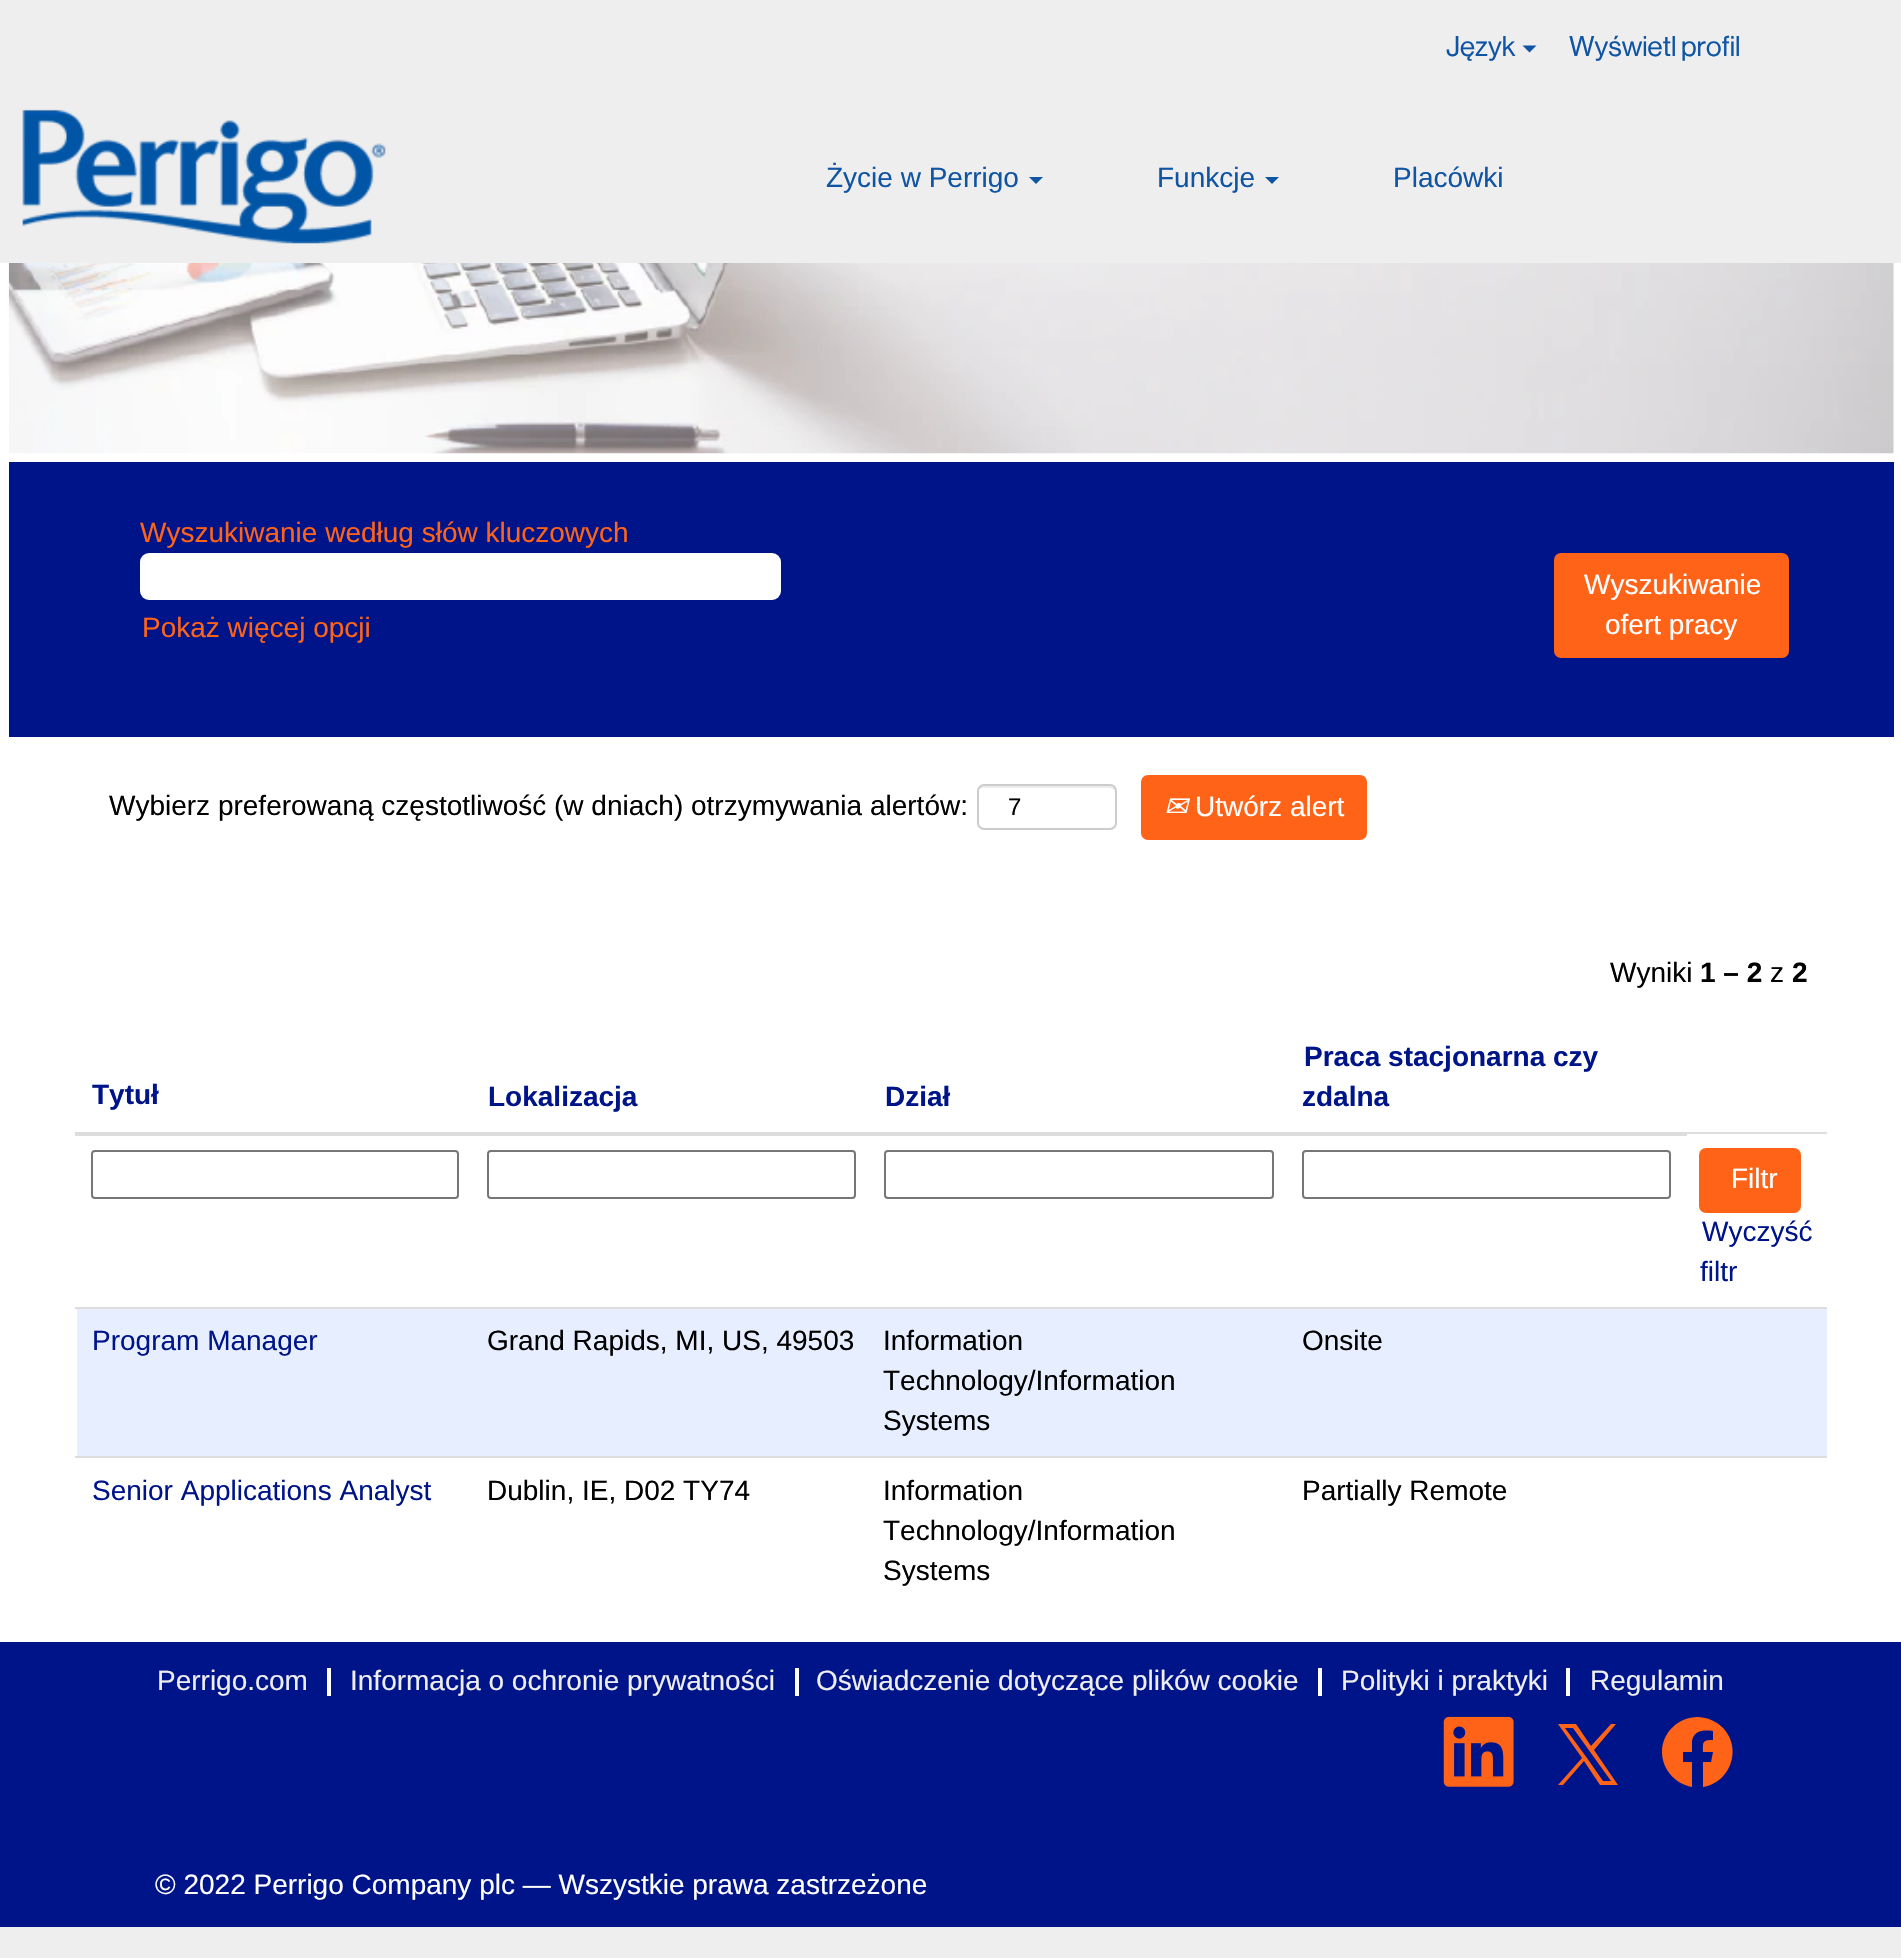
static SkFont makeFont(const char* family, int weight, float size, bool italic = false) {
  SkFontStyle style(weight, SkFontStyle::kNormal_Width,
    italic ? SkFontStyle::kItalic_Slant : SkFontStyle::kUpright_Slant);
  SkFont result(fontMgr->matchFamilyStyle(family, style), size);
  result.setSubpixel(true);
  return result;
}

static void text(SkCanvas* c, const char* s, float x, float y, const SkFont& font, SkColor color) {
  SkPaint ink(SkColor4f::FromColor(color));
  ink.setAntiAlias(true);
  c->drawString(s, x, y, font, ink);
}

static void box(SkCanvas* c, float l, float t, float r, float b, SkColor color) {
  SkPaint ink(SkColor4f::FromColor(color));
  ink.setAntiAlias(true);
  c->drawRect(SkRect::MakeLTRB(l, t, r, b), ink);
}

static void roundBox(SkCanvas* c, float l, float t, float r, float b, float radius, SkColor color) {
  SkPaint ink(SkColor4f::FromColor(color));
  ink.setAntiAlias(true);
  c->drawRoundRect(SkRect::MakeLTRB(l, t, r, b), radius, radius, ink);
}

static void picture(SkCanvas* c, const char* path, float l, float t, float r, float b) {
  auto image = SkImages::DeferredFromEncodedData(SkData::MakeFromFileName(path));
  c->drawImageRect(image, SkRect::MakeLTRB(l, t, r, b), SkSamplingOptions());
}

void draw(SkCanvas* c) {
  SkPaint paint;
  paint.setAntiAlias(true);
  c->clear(0xffeeeeee);
  SkFont face1 = makeFont("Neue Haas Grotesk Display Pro", 400, 28);
  text(c, "Język", 1446, 56, face1, 0xff1054a4);
  paint.setColor(0xff1054a4);
  c->drawPath(SkPathBuilder().moveTo(1522.5f, 45.5f).lineTo(1536.5f, 45.5f).lineTo(1529.5f, 52.5f).close().detach(), paint);
  text(c, "Wyświetl profil", 1569, 56, face1, 0xff1054a4);
  picture(c, "img_01.png", 22, 109, 386, 244);
  SkFont face2 = makeFont("Liberation Sans", 400, 28);
  text(c, "Życie w Perrigo", 826, 187, face2, 0xff1054a4);
  c->drawPath(SkPathBuilder().moveTo(1029, 177).lineTo(1043, 177).lineTo(1036, 184).close().detach(), paint);
  text(c, "Funkcje", 1157, 187, face2, 0xff1054a4);
  c->drawPath(SkPathBuilder().moveTo(1265, 177).lineTo(1279, 177).lineTo(1272, 184).close().detach(), paint);
  text(c, "Placówki", 1393, 187, face2, 0xff1054a4);
  box(c, 0, 263, 1901, 1642, 0xffffffff);
  box(c, 1893, 263, 1894, 453, 0xffeeeeee);
  picture(c, "img_02.png", 8, 263, 1894, 454);
  box(c, 9, 462, 1894, 737, 0xff001489);
  text(c, "Wyszukiwanie według słów kluczowych", 140, 542, face2, 0xffff6318);
  roundBox(c, 140, 553, 781, 600, 9, 0xffffffff);
  text(c, "Pokaż więcej opcji", 142, 637, face2, 0xffff6318);
  roundBox(c, 1554, 553, 1789, 658, 7, 0xffff6318);
  text(c, "Wyszukiwanie", 1584, 594, face2, 0xffffffff);
  text(c, "ofert pracy", 1605, 634, face2, 0xffffffff);
  text(c, "Wybierz preferowaną częstotliwość (w dniach) otrzymywania alertów:", 109, 815, face2, 0xff000000);
  paint.setColor(0xffececec);
  c->drawPath(SkPathBuilder().moveTo(984, 788).lineTo(1110, 788).cubicTo(1112, 788, 1115, 790, 1115, 793).lineTo(1115, 791).cubicTo(1115, 788, 1113, 786, 1110, 786).lineTo(983, 786).cubicTo(980, 786, 978, 788, 978, 791).lineTo(978, 793).cubicTo(978, 790, 981, 788, 984, 788).close().detach(), paint);
  paint.setStyle(SkPaint::kStroke_Style);
  paint.setStrokeWidth(2);
  paint.setColor(0xffcccccc);
  c->drawRoundRect(SkRect::MakeLTRB(978, 785, 1116, 829), 6, 6, paint);
  SkFont face3 = makeFont("Liberation Sans", 400, 24);
  text(c, "7", 1008, 815, face3, 0xff000000);
  roundBox(c, 1141, 775, 1367, 840, 7, 0xffff6318);
  SkFont face4 = makeFont("DejaVu Sans", 400, 28, true);
  text(c, "✉", 1164, 816, face4, 0xffffffff);
  text(c, "Utwórz alert", 1195, 816, face2, 0xffffffff);
  text(c, "Wyniki", 1610, 982, face2, 0xff000000);
  SkFont face5 = makeFont("Liberation Sans", 700, 28);
  text(c, "1 – 2", 1700, 982, face5, 0xff000000);
  text(c, "z", 1770, 982, face2, 0xff000000);
  text(c, "2", 1792, 982, face5, 0xff000000);
  text(c, "Tytuł", 92, 1104, face5, 0xff001489);
  text(c, "Lokalizacja", 488, 1106, face5, 0xff001489);
  text(c, "Dział", 885, 1106, face5, 0xff001489);
  box(c, 1685, 1132, 1827, 1134, 0xffdddddd);
  box(c, 75, 1132, 1687, 1136, 0xffdddddd);
  text(c, "Praca stacjonarna czy", 1304, 1066, face5, 0xff001489);
  text(c, "zdalna", 1302, 1106, face5, 0xff001489);
  paint.setColor(0xff767676);
  c->drawRoundRect(SkRect::MakeLTRB(92, 1151, 458, 1198), 3, 3, paint);
  c->drawRoundRect(SkRect::MakeLTRB(488, 1151, 855, 1198), 3, 3, paint);
  c->drawRoundRect(SkRect::MakeLTRB(885, 1151, 1273, 1198), 3, 3, paint);
  c->drawRoundRect(SkRect::MakeLTRB(1303, 1151, 1670, 1198), 3, 3, paint);
  roundBox(c, 1699, 1148, 1801, 1213, 7, 0xffff6318);
  text(c, "Filtr", 1731, 1188, face2, 0xffffffff);
  text(c, "Wyczyść", 1702, 1241, face2, 0xff001489);
  text(c, "filtr", 1700, 1281, face2, 0xff001489);
  box(c, 77, 1309, 1827, 1456, 0xffe6eeff);
  box(c, 75, 1307, 1827, 1309, 0xffdddddd);
  text(c, "Program Manager", 92, 1350, face2, 0xff001489);
  text(c, "Grand Rapids, MI, US, 49503", 487, 1350, face2, 0xff000000);
  text(c, "Information", 883, 1350, face2, 0xff000000);
  text(c, "Technology/Information", 883, 1390, face2, 0xff000000);
  text(c, "Systems", 883, 1430, face2, 0xff000000);
  text(c, "Onsite", 1302, 1350, face2, 0xff000000);
  box(c, 75, 1456, 1827, 1458, 0xffdddddd);
  text(c, "Senior Applications Analyst", 92, 1500, face2, 0xff001489);
  text(c, "Dublin, IE, D02 TY74", 487, 1500, face2, 0xff000000);
  text(c, "Information", 883, 1500, face2, 0xff000000);
  text(c, "Technology/Information", 883, 1540, face2, 0xff000000);
  text(c, "Systems", 883, 1580, face2, 0xff000000);
  text(c, "Partially Remote", 1302, 1500, face2, 0xff000000);
  box(c, 0, 1642, 1901, 1927, 0xff001489);
  box(c, 327, 1668, 331, 1696, 0xffffffff);
  text(c, "Perrigo.com", 157, 1690, face2, 0xffeeeeee);
  box(c, 795, 1668, 799, 1696, 0xffffffff);
  text(c, "Informacja o ochronie prywatności", 350, 1690, face2, 0xffeeeeee);
  box(c, 1318, 1668, 1322, 1696, 0xffffffff);
  text(c, "Oświadczenie dotyczące plików cookie", 816, 1690, face2, 0xffeeeeee);
  box(c, 1566, 1668, 1570, 1696, 0xffffffff);
  text(c, "Polityki i praktyki", 1341, 1690, face2, 0xffeeeeee);
  text(c, "Regulamin", 1590, 1690, face2, 0xffeeeeee);
  picture(c, "img_03.png", 1443, 1716, 1514, 1787);
  paint.setStyle(SkPaint::kFill_Style);
  paint.setColor(0xffff6318);
  c->drawPath(SkPathBuilder().moveTo(1594, 1750).lineTo(1616, 1724).lineTo(1611, 1724).lineTo(1591, 1746).lineTo(1576, 1724).lineTo(1558, 1724).lineTo(1582, 1758).lineTo(1558, 1785).lineTo(1563, 1785).lineTo(1584, 1761).lineTo(1600, 1785).lineTo(1618, 1785).close().moveTo(1587, 1758).lineTo(1565, 1728).lineTo(1573, 1728).lineTo(1611, 1781).lineTo(1603, 1781).close().detach(), paint);
  c->drawPath(SkPathBuilder().moveTo(1698, 1717).cubicTo(1678, 1717, 1662, 1733, 1662, 1752).cubicTo(1662, 1769, 1675, 1784, 1692, 1787).lineTo(1692, 1762).lineTo(1683, 1762).lineTo(1683, 1752).lineTo(1692, 1752).lineTo(1692, 1741).cubicTo(1694, 1730, 1704, 1730, 1713, 1731).lineTo(1713, 1740).cubicTo(1702, 1740, 1703, 1742, 1703, 1752).lineTo(1713, 1752).lineTo(1711, 1762).lineTo(1703, 1762).lineTo(1703, 1787).cubicTo(1734, 1782, 1744, 1741, 1717, 1723).cubicTo(1711, 1719, 1704, 1717, 1698, 1717).close().detach(), paint);
  text(c, "© 2022 Perrigo Company plc — Wszystkie prawa zastrzeżone", 155, 1894, face2, 0xffffffff);
}
